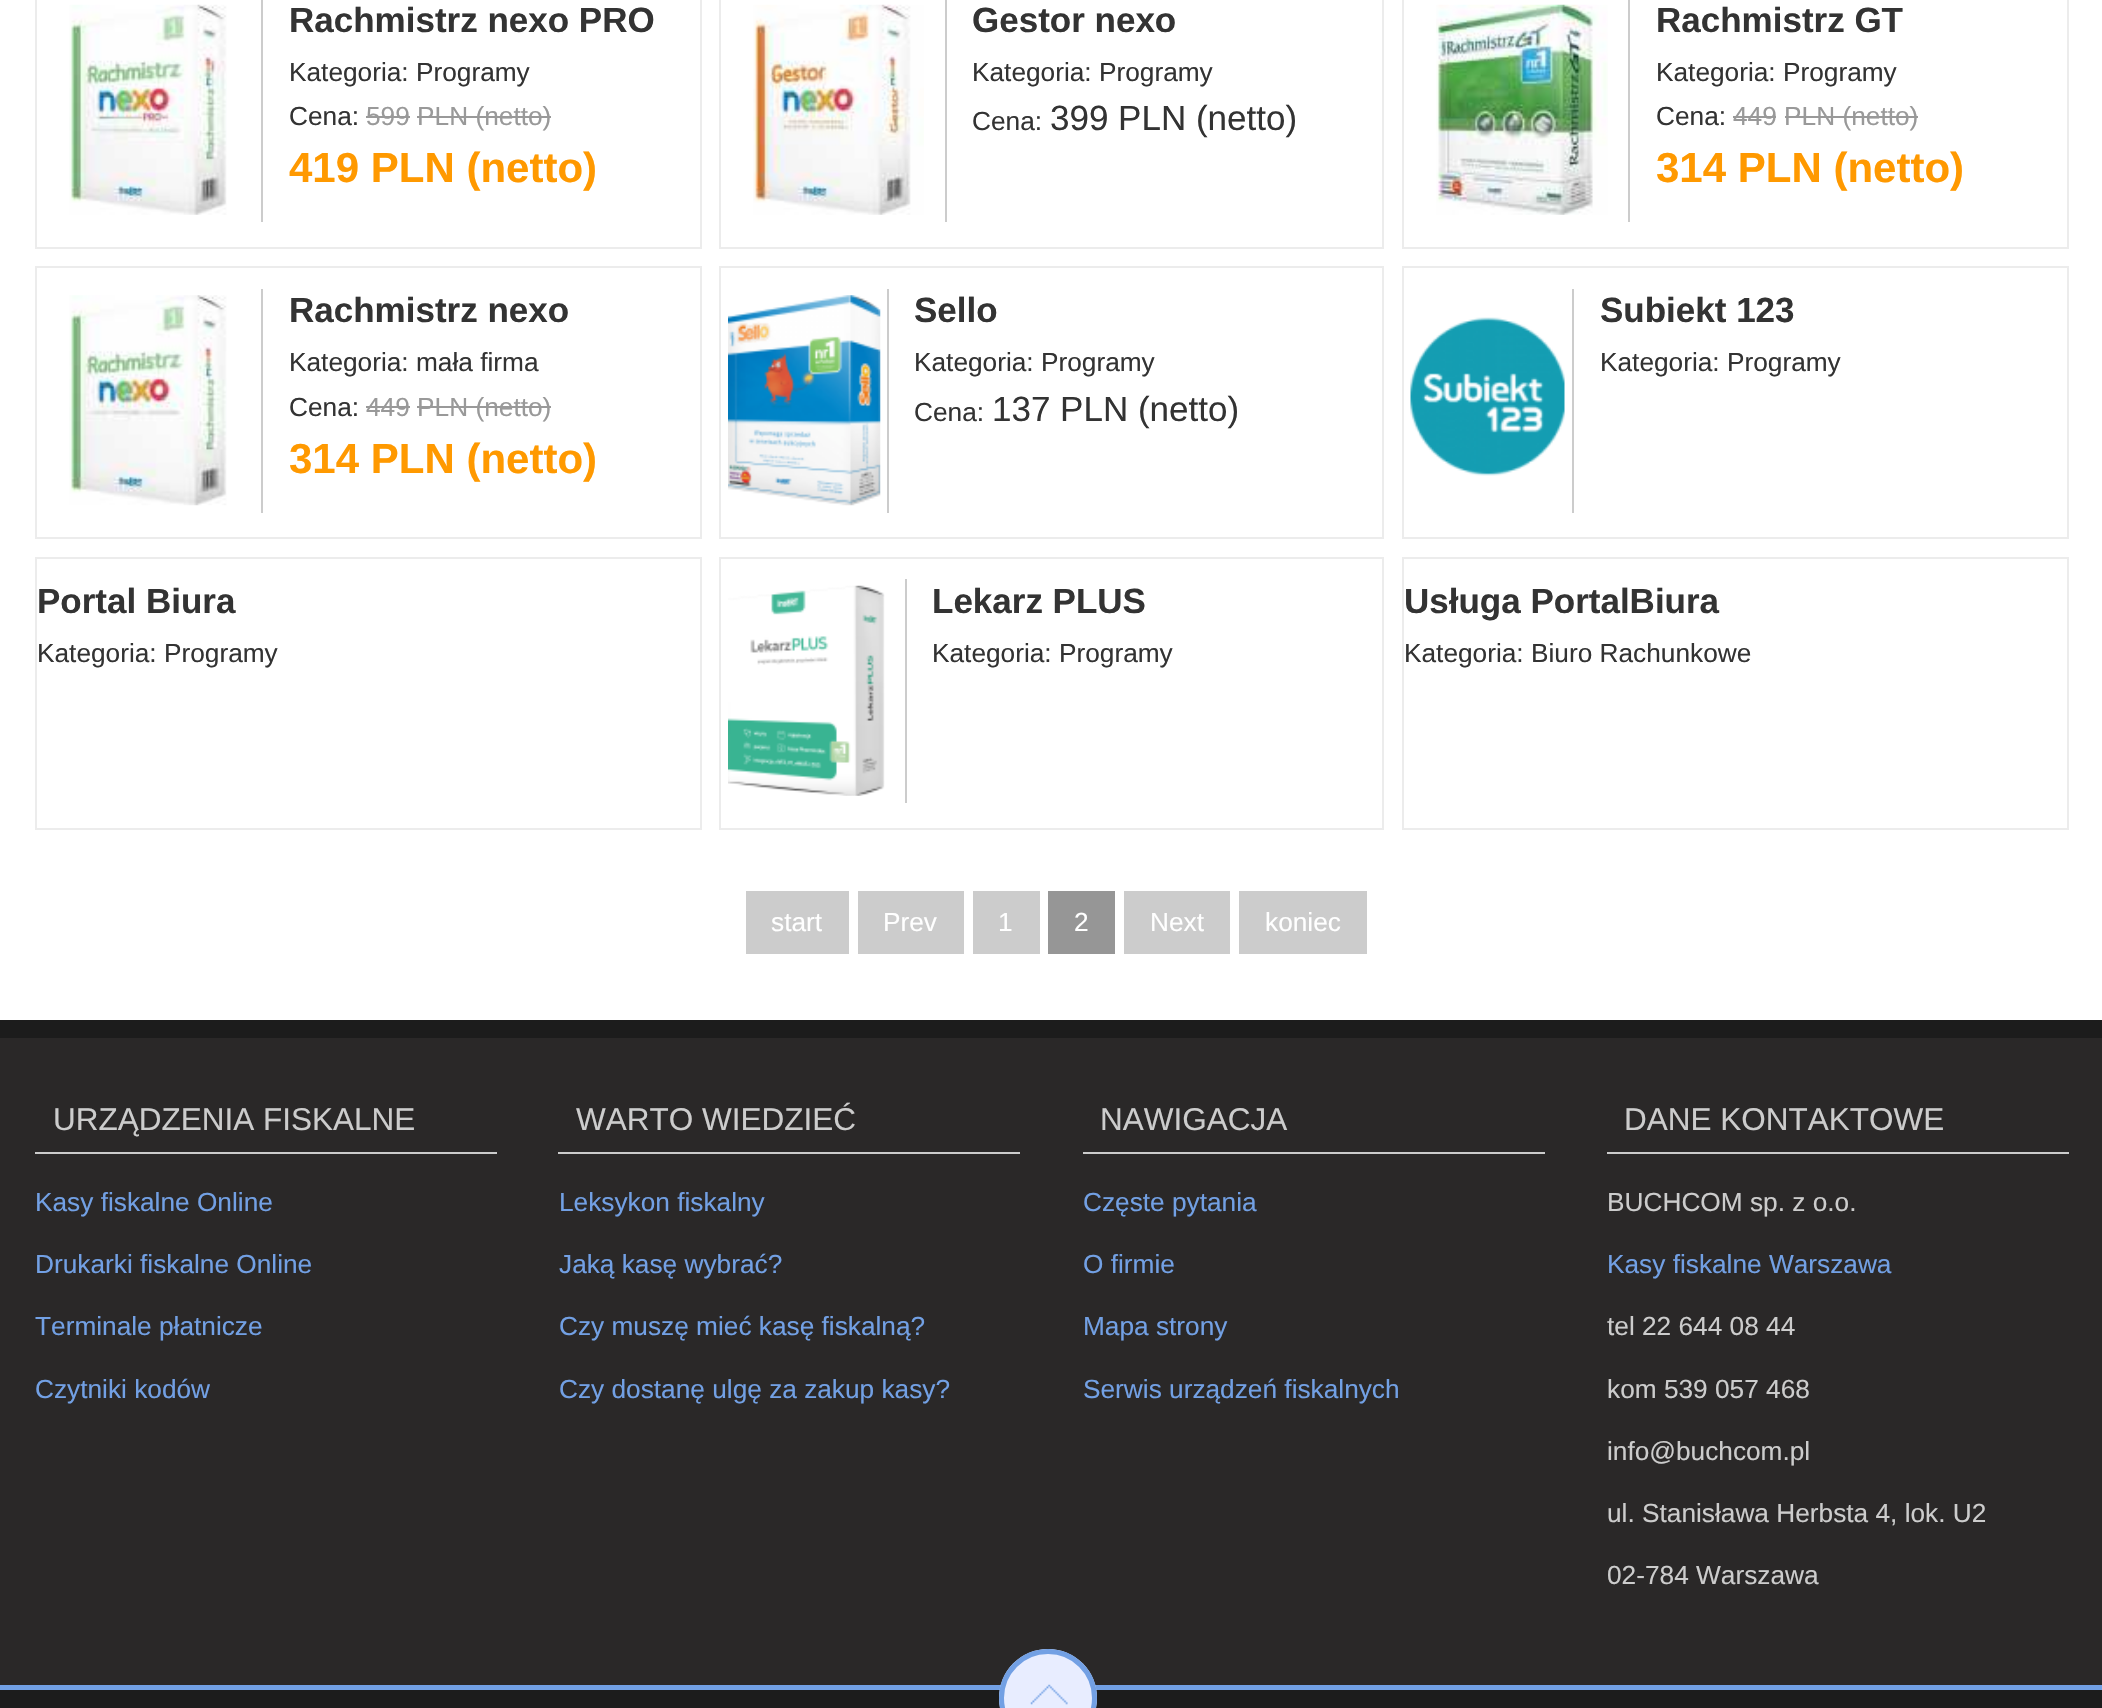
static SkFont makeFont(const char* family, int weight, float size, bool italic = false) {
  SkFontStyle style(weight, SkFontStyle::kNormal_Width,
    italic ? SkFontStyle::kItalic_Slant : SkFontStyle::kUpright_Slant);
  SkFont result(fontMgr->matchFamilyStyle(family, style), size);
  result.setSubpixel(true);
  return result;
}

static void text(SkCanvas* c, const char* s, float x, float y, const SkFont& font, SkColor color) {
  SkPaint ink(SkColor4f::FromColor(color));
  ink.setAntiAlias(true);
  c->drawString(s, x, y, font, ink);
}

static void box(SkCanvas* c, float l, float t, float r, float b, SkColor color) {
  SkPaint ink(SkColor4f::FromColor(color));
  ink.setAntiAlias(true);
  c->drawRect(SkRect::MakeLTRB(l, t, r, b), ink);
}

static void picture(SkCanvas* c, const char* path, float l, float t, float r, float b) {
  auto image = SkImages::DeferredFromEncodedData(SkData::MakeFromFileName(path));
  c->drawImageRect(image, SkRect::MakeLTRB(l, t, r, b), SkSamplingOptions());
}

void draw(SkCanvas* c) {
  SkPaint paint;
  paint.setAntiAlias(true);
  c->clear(0xffffffff);
  paint.setStyle(SkPaint::kStroke_Style);
  paint.setStrokeWidth(2);
  paint.setColor(0xffececec);
  c->drawRect(SkRect::MakeLTRB(36, -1, 701, 248), paint);
  picture(c, "img_01.png", 69, 4, 227, 215);
  box(c, 261, 0, 263, 222, 0xffcccccc);
  SkFont face1 = makeFont("Liberation Sans", 700, 35);
  text(c, "Rachmistrz nexo PRO", 289, 32, face1, 0xff333333);
  SkFont face2 = makeFont("Liberation Sans", 400, 26.25f);
  text(c, "Kategoria: Programy", 289, 81, face2, 0xff333333);
  text(c, "Cena:", 289, 125, face2, 0xff333333);
  text(c, "599 PLN (netto)", 366, 125, face2, 0xff999999);
  box(c, 366, 116, 410, 118, 0xff999999);
  box(c, 417, 116, 551, 118, 0xff999999);
  SkFont face3 = makeFont("Liberation Sans", 700, 42);
  text(c, "419 PLN (netto)", 289, 182, face3, 0xffff9900);
  c->drawRect(SkRect::MakeLTRB(720, -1, 1383, 248), paint);
  picture(c, "img_02.png", 753, 4, 924, 215);
  box(c, 945, 0, 947, 222, 0xffcccccc);
  text(c, "Gestor nexo", 972, 32, face1, 0xff333333);
  text(c, "Kategoria: Programy", 972, 81, face2, 0xff333333);
  text(c, "Cena:", 972, 130, face2, 0xff333333);
  SkFont face4 = makeFont("Liberation Sans", 400, 35);
  text(c, "399 PLN (netto)", 1050, 130, face4, 0xff333333);
  c->drawRect(SkRect::MakeLTRB(1403, -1, 2068, 248), paint);
  picture(c, "img_03.png", 1436, 4, 1608, 215);
  box(c, 1628, 0, 1630, 222, 0xffcccccc);
  text(c, "Rachmistrz GT", 1656, 32, face1, 0xff333333);
  text(c, "Kategoria: Programy", 1656, 81, face2, 0xff333333);
  text(c, "Cena:", 1656, 125, face2, 0xff333333);
  text(c, "449 PLN (netto)", 1733, 125, face2, 0xff999999);
  box(c, 1733, 116, 1776, 118, 0xff999999);
  box(c, 1785, 116, 1918, 118, 0xff999999);
  text(c, "314 PLN (netto)", 1656, 182, face3, 0xffff9900);
  c->drawRect(SkRect::MakeLTRB(36, 267, 701, 538), paint);
  picture(c, "img_04.png", 69, 295, 227, 506);
  box(c, 261, 289, 263, 513, 0xffcccccc);
  text(c, "Rachmistrz nexo", 289, 322, face1, 0xff333333);
  text(c, "Kategoria: mała firma", 289, 371, face2, 0xff333333);
  text(c, "Cena:", 289, 416, face2, 0xff333333);
  text(c, "449 PLN (netto)", 366, 416, face2, 0xff999999);
  box(c, 366, 406, 410, 408, 0xff999999);
  box(c, 417, 406, 551, 408, 0xff999999);
  text(c, "314 PLN (netto)", 289, 473, face3, 0xffff9900);
  c->drawRect(SkRect::MakeLTRB(720, 267, 1383, 538), paint);
  picture(c, "img_05.png", 728, 295, 881, 506);
  box(c, 887, 289, 889, 513, 0xffcccccc);
  text(c, "Sello", 914, 322, face1, 0xff333333);
  text(c, "Kategoria: Programy", 914, 371, face2, 0xff333333);
  text(c, "Cena:", 914, 421, face2, 0xff333333);
  text(c, "137 PLN (netto)", 992, 421, face4, 0xff333333);
  c->drawRect(SkRect::MakeLTRB(1403, 267, 2068, 538), paint);
  picture(c, "img_06.png", 1410, 317, 1565, 476);
  box(c, 1572, 289, 1574, 513, 0xffcccccc);
  text(c, "Subiekt 123", 1600, 322, face1, 0xff333333);
  text(c, "Kategoria: Programy", 1600, 371, face2, 0xff333333);
  c->drawRect(SkRect::MakeLTRB(36, 558, 701, 829), paint);
  text(c, "Portal Biura", 37, 613, face1, 0xff333333);
  text(c, "Kategoria: Programy", 37, 662, face2, 0xff333333);
  c->drawRect(SkRect::MakeLTRB(720, 558, 1383, 829), paint);
  picture(c, "img_07.png", 728, 585, 885, 796);
  box(c, 905, 579, 907, 803, 0xffcccccc);
  text(c, "Lekarz PLUS", 932, 613, face1, 0xff333333);
  text(c, "Kategoria: Programy", 932, 662, face2, 0xff333333);
  c->drawRect(SkRect::MakeLTRB(1403, 558, 2068, 829), paint);
  text(c, "Usługa PortalBiura", 1404, 613, face1, 0xff333333);
  text(c, "Kategoria: Biuro Rachunkowe", 1404, 662, face2, 0xff333333);
  box(c, 746, 891, 849, 954, 0xffcccccc);
  text(c, "start", 771, 931, face2, 0xffffffff);
  box(c, 858, 891, 964, 954, 0xffcccccc);
  text(c, "Prev", 883, 931, face2, 0xffffffff);
  box(c, 973, 891, 1040, 954, 0xffcccccc);
  text(c, "1", 998, 931, face2, 0xffffffff);
  box(c, 1048, 891, 1115, 954, 0xff969696);
  text(c, "2", 1074, 931, face2, 0xffffffff);
  box(c, 1124, 891, 1230, 954, 0xffcccccc);
  text(c, "Next", 1150, 931, face2, 0xffffffff);
  box(c, 1239, 891, 1367, 954, 0xffcccccc);
  text(c, "koniec", 1265, 931, face2, 0xffffffff);
  box(c, 0, 1038, 2102, 1685, 0xff2a2828);
  box(c, 0, 1020, 2102, 1038, 0xff1c1c1c);
  box(c, 35, 1152, 497, 1154, 0xffcccccc);
  SkFont face5 = makeFont("Liberation Sans", 400, 31.5f);
  text(c, "URZĄDZENIA FISKALNE", 53, 1130, face5, 0xffcccccc);
  text(c, "Kasy fiskalne Online", 35, 1211, face2, 0xff72a0e4);
  text(c, "Drukarki fiskalne Online", 35, 1273, face2, 0xff72a0e4);
  text(c, "Terminale płatnicze", 35, 1335, face2, 0xff72a0e4);
  text(c, "Czytniki kodów", 35, 1398, face2, 0xff72a0e4);
  box(c, 558, 1152, 1020, 1154, 0xffcccccc);
  text(c, "WARTO WIEDZIEĆ", 576, 1130, face5, 0xffcccccc);
  text(c, "Leksykon fiskalny", 559, 1211, face2, 0xff72a0e4);
  text(c, "Jaką kasę wybrać?", 559, 1273, face2, 0xff72a0e4);
  text(c, "Czy muszę mieć kasę fiskalną?", 559, 1335, face2, 0xff72a0e4);
  text(c, "Czy dostanę ulgę za zakup kasy?", 559, 1398, face2, 0xff72a0e4);
  box(c, 1083, 1152, 1545, 1154, 0xffcccccc);
  text(c, "NAWIGACJA", 1100, 1130, face5, 0xffcccccc);
  text(c, "Częste pytania", 1083, 1211, face2, 0xff72a0e4);
  text(c, "O firmie", 1083, 1273, face2, 0xff72a0e4);
  text(c, "Mapa strony", 1083, 1335, face2, 0xff72a0e4);
  text(c, "Serwis urządzeń fiskalnych", 1083, 1398, face2, 0xff72a0e4);
  box(c, 1607, 1152, 2069, 1154, 0xffcccccc);
  text(c, "DANE KONTAKTOWE", 1624, 1130, face5, 0xffcccccc);
  text(c, "BUCHCOM sp. z o.o.", 1607, 1211, face2, 0xffcccccc);
  text(c, "Kasy fiskalne Warszawa", 1607, 1273, face2, 0xff72a0e4);
  text(c, "tel 22 644 08 44", 1607, 1335, face2, 0xffcccccc);
  text(c, "kom 539 057 468", 1607, 1398, face2, 0xffcccccc);
  text(c, "info@buchcom.pl", 1607, 1460, face2, 0xffcccccc);
  text(c, "ul. Stanisława Herbsta 4, lok. U2", 1607, 1522, face2, 0xffcccccc);
  text(c, "02-784 Warszawa", 1607, 1584, face2, 0xffcccccc);
  box(c, 0, 1690, 2102, 1708, 0xff1c1c1c);
  box(c, 0, 1685, 2102, 1690, 0xff72a0e4);
  paint.setStyle(SkPaint::kFill_Style);
  paint.setColor(0xffe8edff);
  c->drawCircle(1048, 1698, 49, paint);
  picture(c, "img_08.png", 1030, 1684, 1068, 1705);
  paint.setStyle(SkPaint::kStroke_Style);
  paint.setStrokeWidth(5);
  paint.setColor(0xff72a0e4);
  c->drawCircle(1048, 1698, 46.5f, paint);
}
